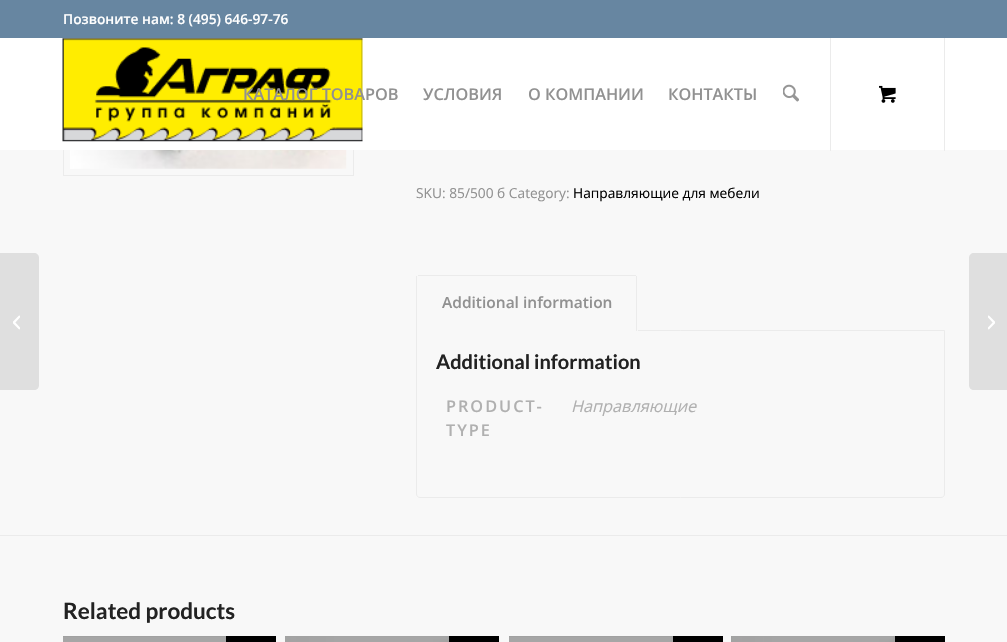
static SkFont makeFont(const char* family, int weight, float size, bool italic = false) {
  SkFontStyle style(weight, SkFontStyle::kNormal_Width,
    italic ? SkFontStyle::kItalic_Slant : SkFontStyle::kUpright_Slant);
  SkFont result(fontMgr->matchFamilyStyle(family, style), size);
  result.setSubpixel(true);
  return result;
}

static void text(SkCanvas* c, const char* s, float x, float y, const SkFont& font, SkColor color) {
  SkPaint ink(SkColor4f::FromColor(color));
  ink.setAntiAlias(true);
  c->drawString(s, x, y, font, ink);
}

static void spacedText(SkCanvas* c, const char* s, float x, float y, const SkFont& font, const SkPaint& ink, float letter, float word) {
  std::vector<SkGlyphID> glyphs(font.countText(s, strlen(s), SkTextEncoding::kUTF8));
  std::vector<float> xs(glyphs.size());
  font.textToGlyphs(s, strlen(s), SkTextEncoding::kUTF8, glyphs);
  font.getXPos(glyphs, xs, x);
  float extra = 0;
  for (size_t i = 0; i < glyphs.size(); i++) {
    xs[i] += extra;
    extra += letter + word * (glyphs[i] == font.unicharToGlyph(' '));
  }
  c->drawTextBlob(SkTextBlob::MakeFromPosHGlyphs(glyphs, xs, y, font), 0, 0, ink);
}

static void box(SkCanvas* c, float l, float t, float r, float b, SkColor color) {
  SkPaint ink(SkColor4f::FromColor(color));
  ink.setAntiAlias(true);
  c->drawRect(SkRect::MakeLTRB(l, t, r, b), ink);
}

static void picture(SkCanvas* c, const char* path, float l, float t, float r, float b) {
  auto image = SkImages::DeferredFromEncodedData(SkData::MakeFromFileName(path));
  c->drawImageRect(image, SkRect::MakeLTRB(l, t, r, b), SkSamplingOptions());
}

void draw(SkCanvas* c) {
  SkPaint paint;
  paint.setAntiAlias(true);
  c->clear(0xfff8f8f8);
  box(c, 731, 636, 895, 642, 0xffa1a1a1);
  box(c, 509, 636, 673, 637, 0xffa1a1a1);
  box(c, 285, 636, 449, 637, 0xffa1a1a1);
  box(c, 63, 636, 226, 637, 0xffa1a1a1);
  paint.setStyle(SkPaint::kStroke_Style);
  paint.setStrokeWidth(1);
  paint.setColor(0xffebebeb);
  c->drawRect(SkRect::MakeLTRB(63.5f, -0.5f, 353.5f, 175.5f), paint);
  box(c, 0, 0, 1007, 38, 0xff6786a1);
  SkFont face1 = makeFont("Open Sans", 600, 13.75f);
  text(c, "Позвоните нам: 8 (495) 646-97-76", 63, 24, face1, 0xffffffff);
  box(c, 0, 38, 1007, 150, 0xffffffff);
  picture(c, "img_01.png", 62, 38, 363, 142);
  SkFont face2 = makeFont("Open Sans", 600, 16.25f);
  text(c, "КАТАЛОГ ТОВАРОВ", 243, 100, face2, 0xff919191);
  text(c, "УСЛОВИЯ", 423, 100, face2, 0xff919191);
  text(c, "О КОМПАНИИ", 528, 100, face2, 0xff919191);
  text(c, "КОНТАКТЫ", 668, 100, face2, 0xff919191);
  picture(c, "img_02.png", 783, 84, 799, 102);
  box(c, 944, 38, 945, 151, 0xffebebeb);
  box(c, 830, 38, 831, 151, 0xffebebeb);
  picture(c, "img_03.png", 879, 85, 896, 103);
  paint.setStyle(SkPaint::kFill_Style);
  paint.setColor(0xffdfdfdf);
  c->drawPath(SkPathBuilder().moveTo(0, 253).lineTo(34, 253).cubicTo(37, 253, 39, 255, 39, 258).lineTo(39, 385).cubicTo(39, 388, 37, 390, 34, 390).lineTo(0, 390).close().detach(), paint);
  picture(c, "img_04.png", 13, 315, 20, 330);
  picture(c, "img_05.png", 70, 150, 347, 169);
  SkFont face3 = makeFont("Open Sans", 400, 13.75f);
  text(c, "SKU: 85/500 б Category:", 416, 198, face3, 0xff919191);
  text(c, "Направляющие для мебели", 573, 198, face3, 0xff000000);
  paint.setStyle(SkPaint::kStroke_Style);
  paint.setColor(0xffebebeb);
  c->drawPath(SkPathBuilder().moveTo(416.5f, 330.5f).lineTo(944.5f, 330.5f).lineTo(944.5f, 494).cubicTo(944.5f, 496, 943, 497.5f, 941, 497.5f).lineTo(420, 497.5f).cubicTo(418, 497.5f, 416.5f, 496, 416.5f, 494).close().detach(), paint);
  box(c, 416, 330, 638, 331, 0xfff8f8f8);
  box(c, 418, 275, 636, 276, 0xffebebeb);
  box(c, 636, 276, 637, 331, 0xffebebeb);
  box(c, 416, 276, 417, 331, 0xffebebeb);
  SkFont face4 = makeFont("Open Sans", 600, 15.5f);
  text(c, "Additional information", 442, 308, face4, 0xff919191);
  SkFont face5 = makeFont("Lato", 700, 20);
  text(c, "Additional information", 436, 369, face5, 0xff222222);
  paint.setStyle(SkPaint::kFill_Style);
  paint.setColor(0xffb0b0b0);
  spacedText(c, "PRODUCT-", 446, 412, face2, paint, 2, 0);
  spacedText(c, "TYPE", 446, 436, face2, paint, 2, 0);
  SkFont face6 = makeFont("Open Sans", 400, 16.25f, true);
  text(c, "Направляющие", 571, 412, face6, 0xffb0b0b0);
  box(c, 0, 535, 1007, 536, 0xffebebeb);
  SkFont face7 = makeFont("Lato", 700, 22.5f);
  text(c, "Related products", 63, 619, face7, 0xff222222);
  box(c, 63, 637, 226, 642, 0xffa6a6a6);
  box(c, 226, 636, 276, 642, 0xff000000);
  picture(c, "img_06.png", 285, 636, 449, 642);
  box(c, 449, 636, 499, 642, 0xff000000);
  box(c, 509, 637, 673, 642, 0xffa6a6a6);
  box(c, 673, 636, 723, 642, 0xff000000);
  picture(c, "img_07.png", 732, 636, 895, 642);
  box(c, 895, 636, 945, 642, 0xff000000);
  paint.setColor(0xffdfdfdf);
  c->drawPath(SkPathBuilder().moveTo(974, 253).lineTo(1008, 253).lineTo(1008, 390).lineTo(974, 390).cubicTo(971, 390, 969, 388, 969, 385).lineTo(969, 258).cubicTo(969, 255, 971, 253, 974, 253).close().detach(), paint);
  picture(c, "img_08.png", 988, 315, 995, 330);
}
